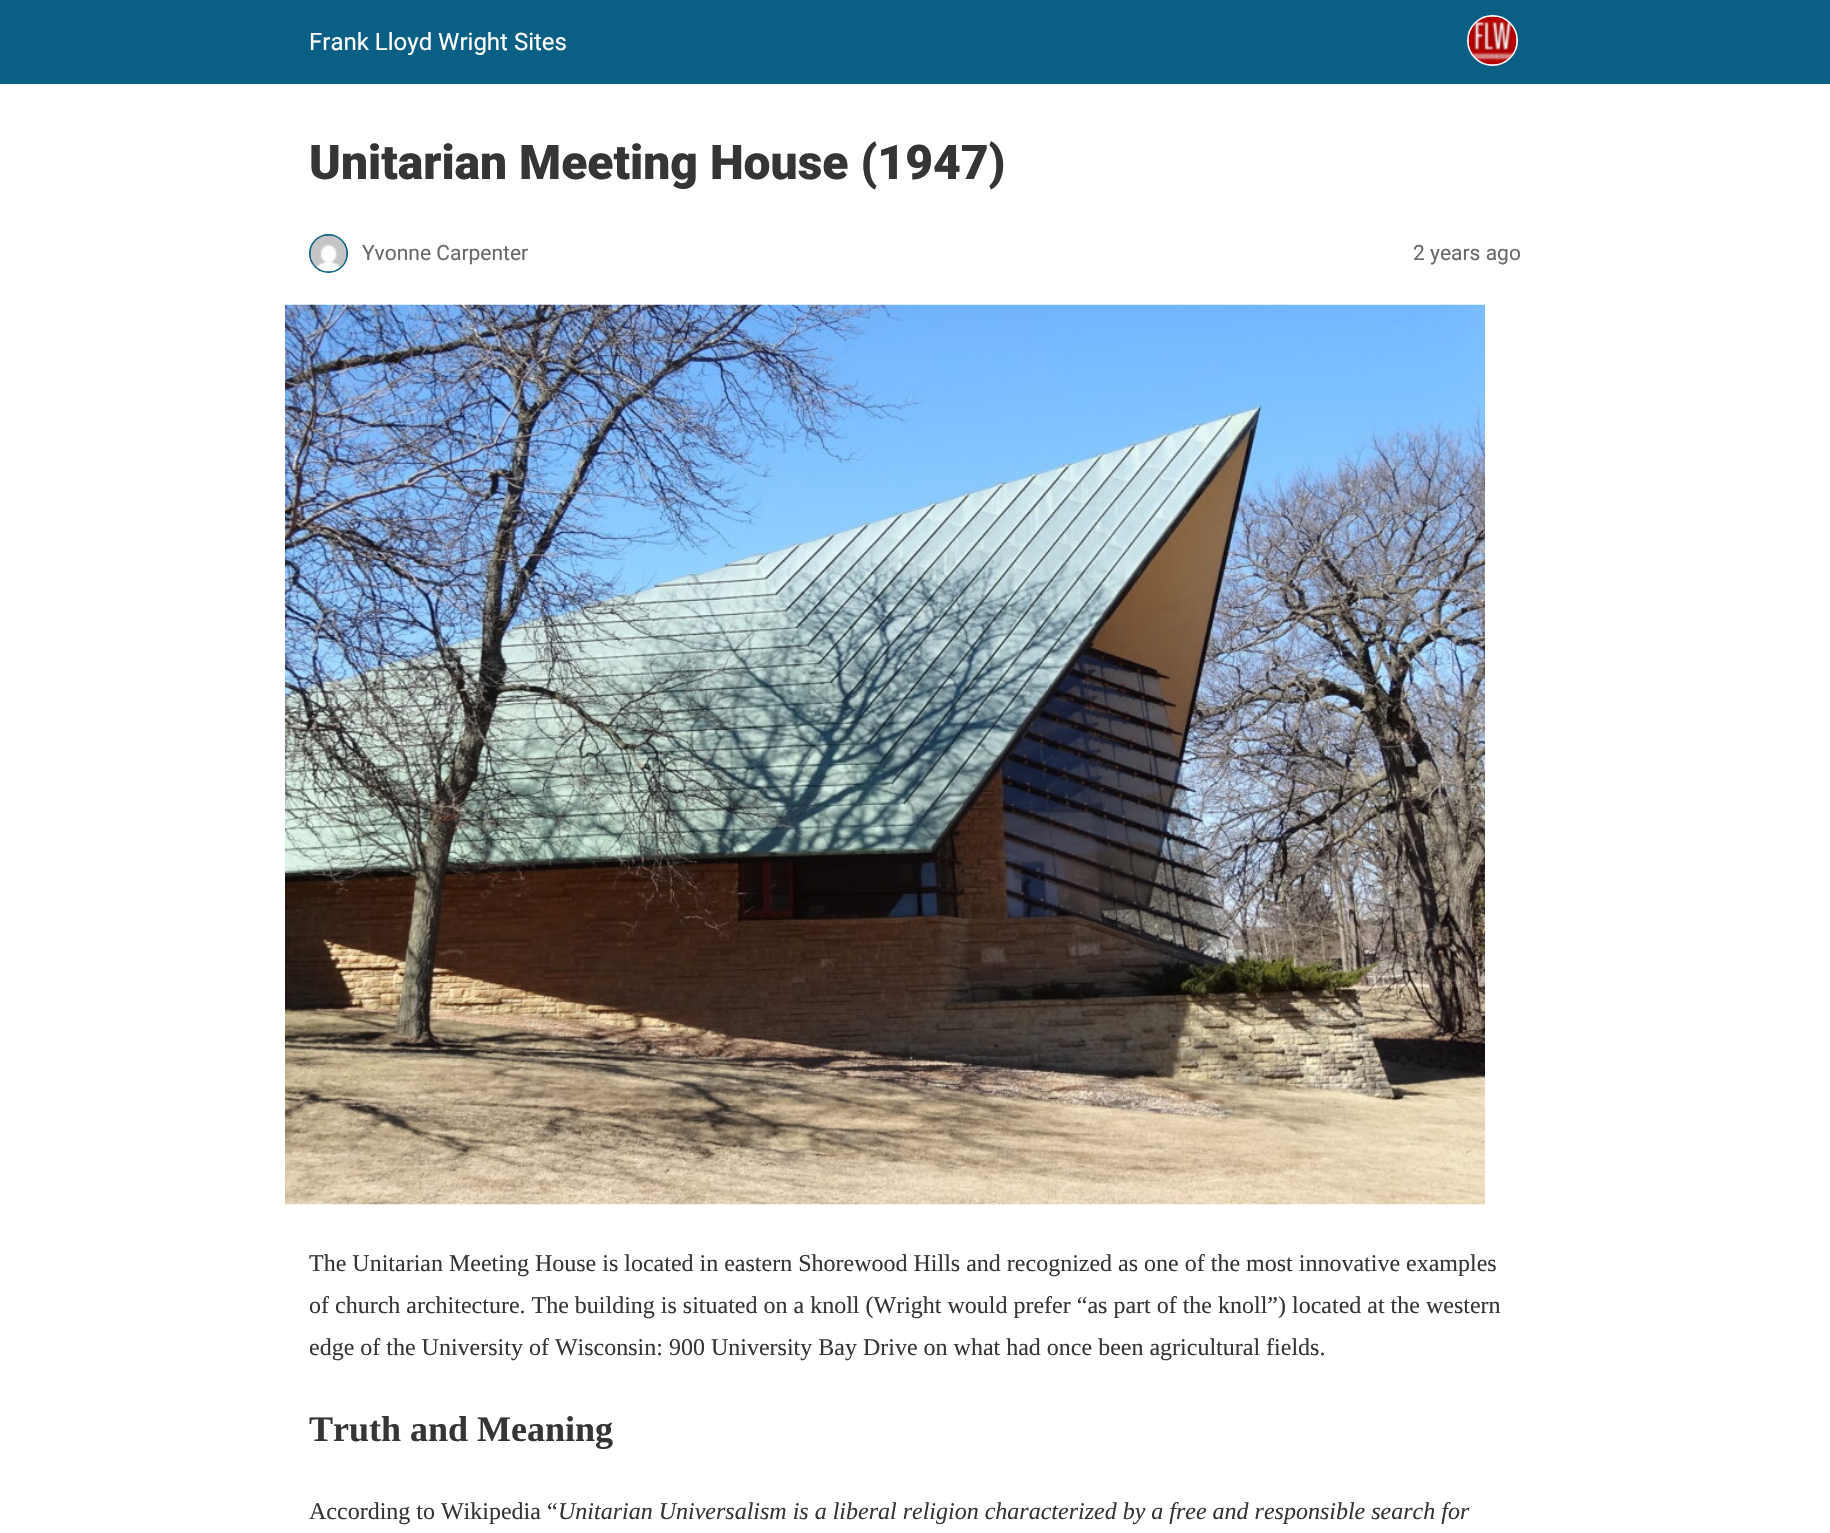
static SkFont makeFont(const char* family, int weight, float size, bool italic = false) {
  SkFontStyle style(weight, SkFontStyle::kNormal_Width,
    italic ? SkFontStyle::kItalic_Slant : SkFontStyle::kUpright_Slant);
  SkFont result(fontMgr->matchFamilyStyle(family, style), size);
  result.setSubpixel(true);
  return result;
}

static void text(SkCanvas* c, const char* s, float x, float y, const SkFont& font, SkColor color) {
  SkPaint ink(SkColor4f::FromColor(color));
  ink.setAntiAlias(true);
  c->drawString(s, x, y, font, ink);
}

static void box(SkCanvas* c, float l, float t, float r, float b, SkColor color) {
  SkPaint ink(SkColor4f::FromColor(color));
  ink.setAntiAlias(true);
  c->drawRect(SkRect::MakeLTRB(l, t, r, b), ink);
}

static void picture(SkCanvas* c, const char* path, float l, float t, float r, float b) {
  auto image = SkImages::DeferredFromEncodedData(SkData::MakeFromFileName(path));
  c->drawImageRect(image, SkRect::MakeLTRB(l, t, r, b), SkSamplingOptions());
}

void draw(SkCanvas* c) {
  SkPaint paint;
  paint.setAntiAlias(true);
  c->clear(0xffffffff);
  box(c, 0, 0, 1830, 84, 0xff0a5f85);
  SkFont face1 = makeFont("Roboto", 400, 24);
  text(c, "Frank Lloyd Wright Sites", 309, 50, face1, 0xffffffff);
  paint.setStyle(SkPaint::kStroke_Style);
  paint.setStrokeWidth(2);
  paint.setColor(0xffffffff);
  c->drawCircle(1492.5f, 40.5f, 24.5f, paint);
  picture(c, "img_01.png", 1468, 16, 1517, 65);
  SkFont face2 = makeFont("Roboto", 900, 48);
  text(c, "Unitarian Meeting House (1947)", 309, 179, face2, 0xff353535);
  paint.setColor(0xff0a5f85);
  c->drawCircle(328.5f, 253.5f, 18.5f, paint);
  picture(c, "img_02.png", 310, 235, 347, 272);
  SkFont face3 = makeFont("Roboto", 400, 21);
  text(c, "Yvonne Carpenter", 362, 260, face3, 0xff696969);
  text(c, "2 years ago", 1413, 260, face3, 0xff696969);
  picture(c, "img_03.png", 285, 304, 1485, 1205);
  SkFont face4 = makeFont("Liberation Serif", 400, 24);
  text(c, "The Unitarian Meeting House is located in eastern Shorewood Hills and recognized as one of the most innovative examples", 309, 1271, face4, 0xff353535);
  text(c, "of church architecture. The building is situated on a knoll (Wright would prefer “as part of the knoll”) located at the western", 309, 1313, face4, 0xff353535);
  text(c, "edge of the University of Wisconsin: 900 University Bay Drive on what had once been agricultural fields.", 309, 1355, face4, 0xff353535);
  SkFont face5 = makeFont("Liberation Serif", 700, 36);
  text(c, "Truth and Meaning", 309, 1441, face5, 0xff353535);
  text(c, "According to Wikipedia “", 309, 1519, face4, 0xff353535);
  SkFont face6 = makeFont("Liberation Serif", 400, 24, true);
  text(c, "Unitarian Universalism is a liberal religion characterized by a free and responsible search for", 558, 1519, face6, 0xff353535);
}
